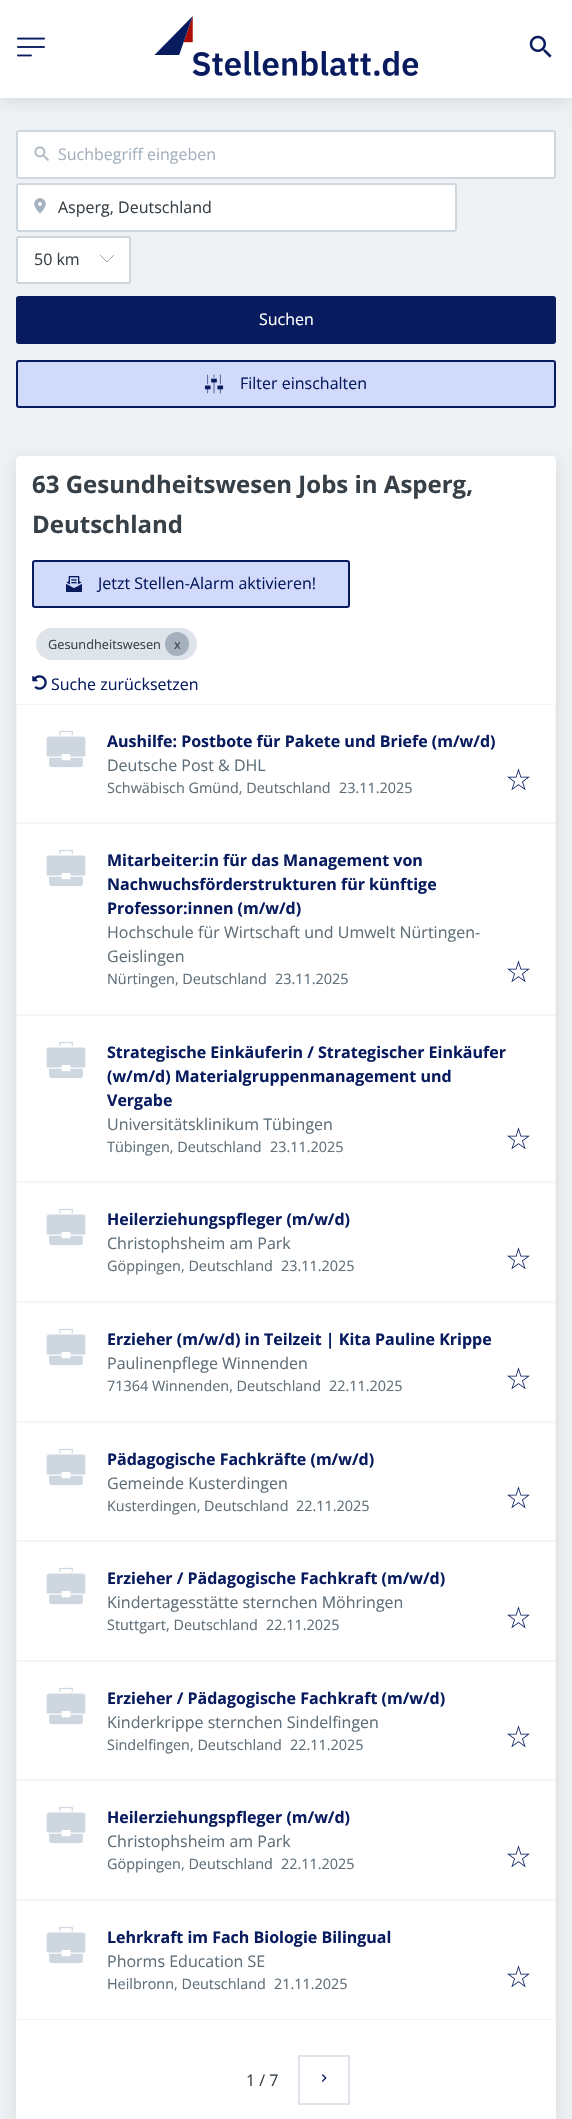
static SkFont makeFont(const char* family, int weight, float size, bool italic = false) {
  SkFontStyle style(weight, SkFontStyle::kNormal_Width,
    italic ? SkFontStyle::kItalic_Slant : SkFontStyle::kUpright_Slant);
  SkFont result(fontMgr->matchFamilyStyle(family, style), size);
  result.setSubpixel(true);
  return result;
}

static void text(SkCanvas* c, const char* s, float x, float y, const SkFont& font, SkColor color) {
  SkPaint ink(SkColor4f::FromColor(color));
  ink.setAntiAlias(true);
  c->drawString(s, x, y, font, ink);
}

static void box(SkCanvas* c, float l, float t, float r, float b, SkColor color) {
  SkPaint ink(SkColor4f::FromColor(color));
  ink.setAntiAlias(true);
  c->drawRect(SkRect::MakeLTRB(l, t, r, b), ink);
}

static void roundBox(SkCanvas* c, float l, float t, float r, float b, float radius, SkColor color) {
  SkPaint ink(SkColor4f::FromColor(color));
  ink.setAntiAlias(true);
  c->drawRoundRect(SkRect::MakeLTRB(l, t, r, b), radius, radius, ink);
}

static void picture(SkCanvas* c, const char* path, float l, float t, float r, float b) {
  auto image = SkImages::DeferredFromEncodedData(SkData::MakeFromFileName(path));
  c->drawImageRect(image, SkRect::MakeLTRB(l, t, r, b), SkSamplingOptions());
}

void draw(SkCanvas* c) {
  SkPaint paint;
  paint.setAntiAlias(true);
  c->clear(0xffeff2f4);
  paint.setColor(0x1a000000);
  paint.setMaskFilter(SkMaskFilter::MakeBlur(kNormal_SkBlurStyle, 7.5f));
  c->drawRect(SkRect::MakeLTRB(0, 3, 572, 101), paint);
  paint.setMaskFilter(nullptr);
  box(c, 0, 0, 572, 98, 0xffffffff);
  picture(c, "img_01.png", 17, 37, 45, 57);
  picture(c, "img_02.png", 154, 16, 418, 76);
  picture(c, "img_03.png", 529, 35, 552, 58);
  paint.setColor(0xffffffff);
  c->drawRoundRect(SkRect::MakeLTRB(17, 131, 555, 178), 2, 2, paint);
  paint.setStyle(SkPaint::kStroke_Style);
  paint.setStrokeWidth(2);
  paint.setColor(0xffced7e0);
  c->drawRoundRect(SkRect::MakeLTRB(17, 131, 555, 178), 2, 2, paint);
  picture(c, "img_04.png", 34, 146, 49, 161);
  SkFont face1 = makeFont("Open Sans", 400, 16);
  text(c, "Suchbegriff eingeben", 58, 160, face1, 0xffa4b0be);
  paint.setStyle(SkPaint::kFill_Style);
  paint.setColor(0xffffffff);
  c->drawRoundRect(SkRect::MakeLTRB(17, 184, 456, 231), 2, 2, paint);
  paint.setStyle(SkPaint::kStroke_Style);
  paint.setColor(0xffced7e0);
  c->drawRoundRect(SkRect::MakeLTRB(17, 184, 456, 231), 2, 2, paint);
  picture(c, "img_05.png", 34, 198, 46, 214);
  text(c, "Asperg, Deutschland", 58, 213, face1, 0xff374047);
  paint.setStyle(SkPaint::kFill_Style);
  paint.setColor(0xffffffff);
  c->drawRoundRect(SkRect::MakeLTRB(17, 237, 130, 283), 2, 2, paint);
  paint.setStyle(SkPaint::kStroke_Style);
  paint.setColor(0xffced7e0);
  c->drawRoundRect(SkRect::MakeLTRB(17, 237, 130, 283), 2, 2, paint);
  text(c, "50 km", 34, 265, face1, 0xff374047);
  paint.setStrokeWidth(0.9f);
  paint.setColor(0xff979797);
  c->drawPath(SkPathBuilder().moveTo(100, 255).lineTo(107, 262).lineTo(114, 255).detach(), paint);
  paint.setStyle(SkPaint::kFill_Style);
  paint.setColor(0xff081b5f);
  c->drawRoundRect(SkRect::MakeLTRB(17, 297, 555, 343), 2, 2, paint);
  paint.setStyle(SkPaint::kStroke_Style);
  paint.setStrokeWidth(2);
  c->drawRoundRect(SkRect::MakeLTRB(17, 297, 555, 343), 2, 2, paint);
  text(c, "Suchen", 259, 325, face1, 0xffffffff);
  paint.setStyle(SkPaint::kFill_Style);
  paint.setColor(0xffd1dafb);
  c->drawRoundRect(SkRect::MakeLTRB(17, 361, 555, 407), 2, 2, paint);
  paint.setStyle(SkPaint::kStroke_Style);
  paint.setColor(0xff081b5f);
  c->drawRoundRect(SkRect::MakeLTRB(17, 361, 555, 407), 2, 2, paint);
  picture(c, "img_06.png", 204, 374, 224, 394);
  text(c, "Filter einschalten", 240, 389, face1, 0xff081b5f);
  paint.setStyle(SkPaint::kFill_Style);
  paint.setColor(0x1a000000);
  paint.setMaskFilter(SkMaskFilter::MakeBlur(kNormal_SkBlurStyle, 7.5f));
  c->drawRoundRect(SkRect::MakeLTRB(16, 459, 556, 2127), 4, 4, paint);
  paint.setMaskFilter(nullptr);
  roundBox(c, 16, 456, 556, 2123, 4, 0xffffffff);
  SkFont face2 = makeFont("Open Sans", 700, 24);
  text(c, "63 Gesundheitswesen Jobs in Asperg,", 32, 493, face2, 0xff374047);
  text(c, "Deutschland", 32, 533, face2, 0xff374047);
  paint.setColor(0xffd1dafb);
  c->drawRoundRect(SkRect::MakeLTRB(33, 561, 349, 607), 2, 2, paint);
  paint.setStyle(SkPaint::kStroke_Style);
  paint.setColor(0xff081b5f);
  c->drawRoundRect(SkRect::MakeLTRB(33, 561, 349, 607), 2, 2, paint);
  picture(c, "img_07.png", 66, 576, 82, 592);
  text(c, "Jetzt Stellen-Alarm aktivieren!", 98, 589, face1, 0xff081b5f);
  roundBox(c, 36, 628, 197, 660, 16, 0xffdfe4ea);
  SkFont face3 = makeFont("Open Sans", 400, 12.75f);
  text(c, "Gesundheitswesen", 48, 649, face3, 0xff374047);
  paint.setStyle(SkPaint::kFill_Style);
  paint.setColor(0xffa4b0be);
  c->drawCircle(177, 644, 12, paint);
  text(c, "x", 174, 649, face3, 0xff374047);
  picture(c, "img_08.png", 32, 675, 47, 690);
  text(c, "Suche zurücksetzen", 51, 690, face1, 0xff081b5f);
  paint.setStyle(SkPaint::kStroke_Style);
  paint.setStrokeWidth(1);
  paint.setColor(0xfff5f5f5);
  c->drawRect(SkRect::MakeLTRB(16.5f, 704.5f, 555.5f, 822.5f), paint);
  picture(c, "img_09.png", 46, 730, 86, 768);
  SkFont face4 = makeFont("Open Sans", 700, 16);
  text(c, "Aushilfe: Postbote für Pakete und Briefe (m/w/d)", 107, 747, face4, 0xff081b5f);
  text(c, "Deutsche Post & DHL", 107, 771, face1, 0xff5f6e78);
  SkFont face5 = makeFont("Open Sans", 400, 14.4f);
  text(c, "Schwäbisch Gmünd, Deutschland", 107, 793, face5, 0xff5f6e78);
  text(c, "23.11.2025", 339, 793, face5, 0xff5f6e78);
  picture(c, "img_10.png", 507, 768, 530, 791);
  c->drawRect(SkRect::MakeLTRB(16.5f, 823.5f, 555.5f, 1014.5f), paint);
  picture(c, "img_09.png", 46, 849, 86, 887);
  text(c, "Mitarbeiter:in für das Management von", 107, 866, face4, 0xff081b5f);
  text(c, "Nachwuchsförderstrukturen für künftige", 107, 890, face4, 0xff081b5f);
  text(c, "Professor:innen (m/w/d)", 107, 914, face4, 0xff081b5f);
  text(c, "Hochschule für Wirtschaft und Umwelt Nürtingen-", 107, 938, face1, 0xff5f6e78);
  text(c, "Geislingen", 107, 962, face1, 0xff5f6e78);
  text(c, "Nürtingen, Deutschland", 107, 984, face5, 0xff5f6e78);
  text(c, "23.11.2025", 275, 984, face5, 0xff5f6e78);
  picture(c, "img_10.png", 507, 960, 530, 983);
  c->drawRect(SkRect::MakeLTRB(16.5f, 1015.5f, 555.5f, 1181.5f), paint);
  picture(c, "img_09.png", 46, 1041, 86, 1079);
  text(c, "Strategische Einkäuferin / Strategischer Einkäufer", 107, 1058, face4, 0xff081b5f);
  text(c, "(w/m/d) Materialgruppenmanagement und", 107, 1082, face4, 0xff081b5f);
  text(c, "Vergabe", 107, 1106, face4, 0xff081b5f);
  text(c, "Universitätsklinikum Tübingen", 107, 1130, face1, 0xff5f6e78);
  text(c, "Tübingen, Deutschland", 107, 1152, face5, 0xff5f6e78);
  text(c, "23.11.2025", 270, 1152, face5, 0xff5f6e78);
  picture(c, "img_10.png", 507, 1127, 530, 1150);
  c->drawRect(SkRect::MakeLTRB(16.5f, 1182.5f, 555.5f, 1301.5f), paint);
  picture(c, "img_09.png", 46, 1208, 86, 1246);
  text(c, "Heilerziehungspfleger (m/w/d)", 107, 1225, face4, 0xff081b5f);
  text(c, "Christophsheim am Park", 107, 1249, face1, 0xff5f6e78);
  text(c, "Göppingen, Deutschland", 107, 1271, face5, 0xff5f6e78);
  text(c, "23.11.2025", 281, 1271, face5, 0xff5f6e78);
  picture(c, "img_10.png", 507, 1247, 530, 1270);
  c->drawRect(SkRect::MakeLTRB(16.5f, 1302.5f, 555.5f, 1421.5f), paint);
  picture(c, "img_09.png", 46, 1328, 86, 1366);
  text(c, "Erzieher (m/w/d) in Teilzeit | Kita Pauline Krippe", 107, 1345, face4, 0xff081b5f);
  text(c, "Paulinenpflege Winnenden", 107, 1369, face1, 0xff5f6e78);
  text(c, "71364 Winnenden, Deutschland", 107, 1391, face5, 0xff5f6e78);
  text(c, "22.11.2025", 329, 1391, face5, 0xff5f6e78);
  picture(c, "img_10.png", 507, 1367, 530, 1390);
  c->drawRect(SkRect::MakeLTRB(16.5f, 1422.5f, 555.5f, 1540.5f), paint);
  picture(c, "img_09.png", 46, 1448, 86, 1486);
  text(c, "Pädagogische Fachkräfte (m/w/d)", 107, 1465, face4, 0xff081b5f);
  text(c, "Gemeinde Kusterdingen", 107, 1489, face1, 0xff5f6e78);
  text(c, "Kusterdingen, Deutschland", 107, 1511, face5, 0xff5f6e78);
  text(c, "22.11.2025", 296, 1511, face5, 0xff5f6e78);
  picture(c, "img_10.png", 507, 1486, 530, 1509);
  c->drawRect(SkRect::MakeLTRB(16.5f, 1541.5f, 555.5f, 1660.5f), paint);
  picture(c, "img_09.png", 46, 1567, 86, 1605);
  text(c, "Erzieher / Pädagogische Fachkraft (m/w/d)", 107, 1584, face4, 0xff081b5f);
  text(c, "Kindertagesstätte sternchen Möhringen", 107, 1608, face1, 0xff5f6e78);
  text(c, "Stuttgart, Deutschland", 107, 1630, face5, 0xff5f6e78);
  text(c, "22.11.2025", 266, 1630, face5, 0xff5f6e78);
  picture(c, "img_10.png", 507, 1606, 530, 1629);
  c->drawRect(SkRect::MakeLTRB(16.5f, 1661.5f, 555.5f, 1779.5f), paint);
  picture(c, "img_09.png", 46, 1687, 86, 1725);
  text(c, "Erzieher / Pädagogische Fachkraft (m/w/d)", 107, 1704, face4, 0xff081b5f);
  text(c, "Kinderkrippe sternchen Sindelfingen", 107, 1728, face1, 0xff5f6e78);
  text(c, "Sindelfingen, Deutschland", 107, 1750, face5, 0xff5f6e78);
  text(c, "22.11.2025", 290, 1750, face5, 0xff5f6e78);
  picture(c, "img_10.png", 507, 1725, 530, 1748);
  c->drawRect(SkRect::MakeLTRB(16.5f, 1780.5f, 555.5f, 1899.5f), paint);
  picture(c, "img_09.png", 46, 1806, 86, 1844);
  text(c, "Heilerziehungspfleger (m/w/d)", 107, 1823, face4, 0xff081b5f);
  text(c, "Christophsheim am Park", 107, 1847, face1, 0xff5f6e78);
  text(c, "Göppingen, Deutschland", 107, 1869, face5, 0xff5f6e78);
  text(c, "22.11.2025", 281, 1869, face5, 0xff5f6e78);
  picture(c, "img_10.png", 507, 1845, 530, 1868);
  c->drawRect(SkRect::MakeLTRB(16.5f, 1900.5f, 555.5f, 2019.5f), paint);
  picture(c, "img_09.png", 46, 1926, 86, 1964);
  text(c, "Lehrkraft im Fach Biologie Bilingual", 107, 1943, face4, 0xff081b5f);
  text(c, "Phorms Education SE", 107, 1967, face1, 0xff5f6e78);
  text(c, "Heilbronn, Deutschland", 107, 1989, face5, 0xff5f6e78);
  text(c, "21.11.2025", 274, 1989, face5, 0xff5f6e78);
  picture(c, "img_10.png", 507, 1965, 530, 1988);
  text(c, "1 / 7", 246, 2086, face1, 0xff374047);
  paint.setStrokeWidth(2);
  paint.setColor(0xffdfe4ea);
  c->drawRect(SkRect::MakeLTRB(299, 2056, 349, 2104), paint);
  picture(c, "img_11.png", 321, 2074, 327, 2082);
}
